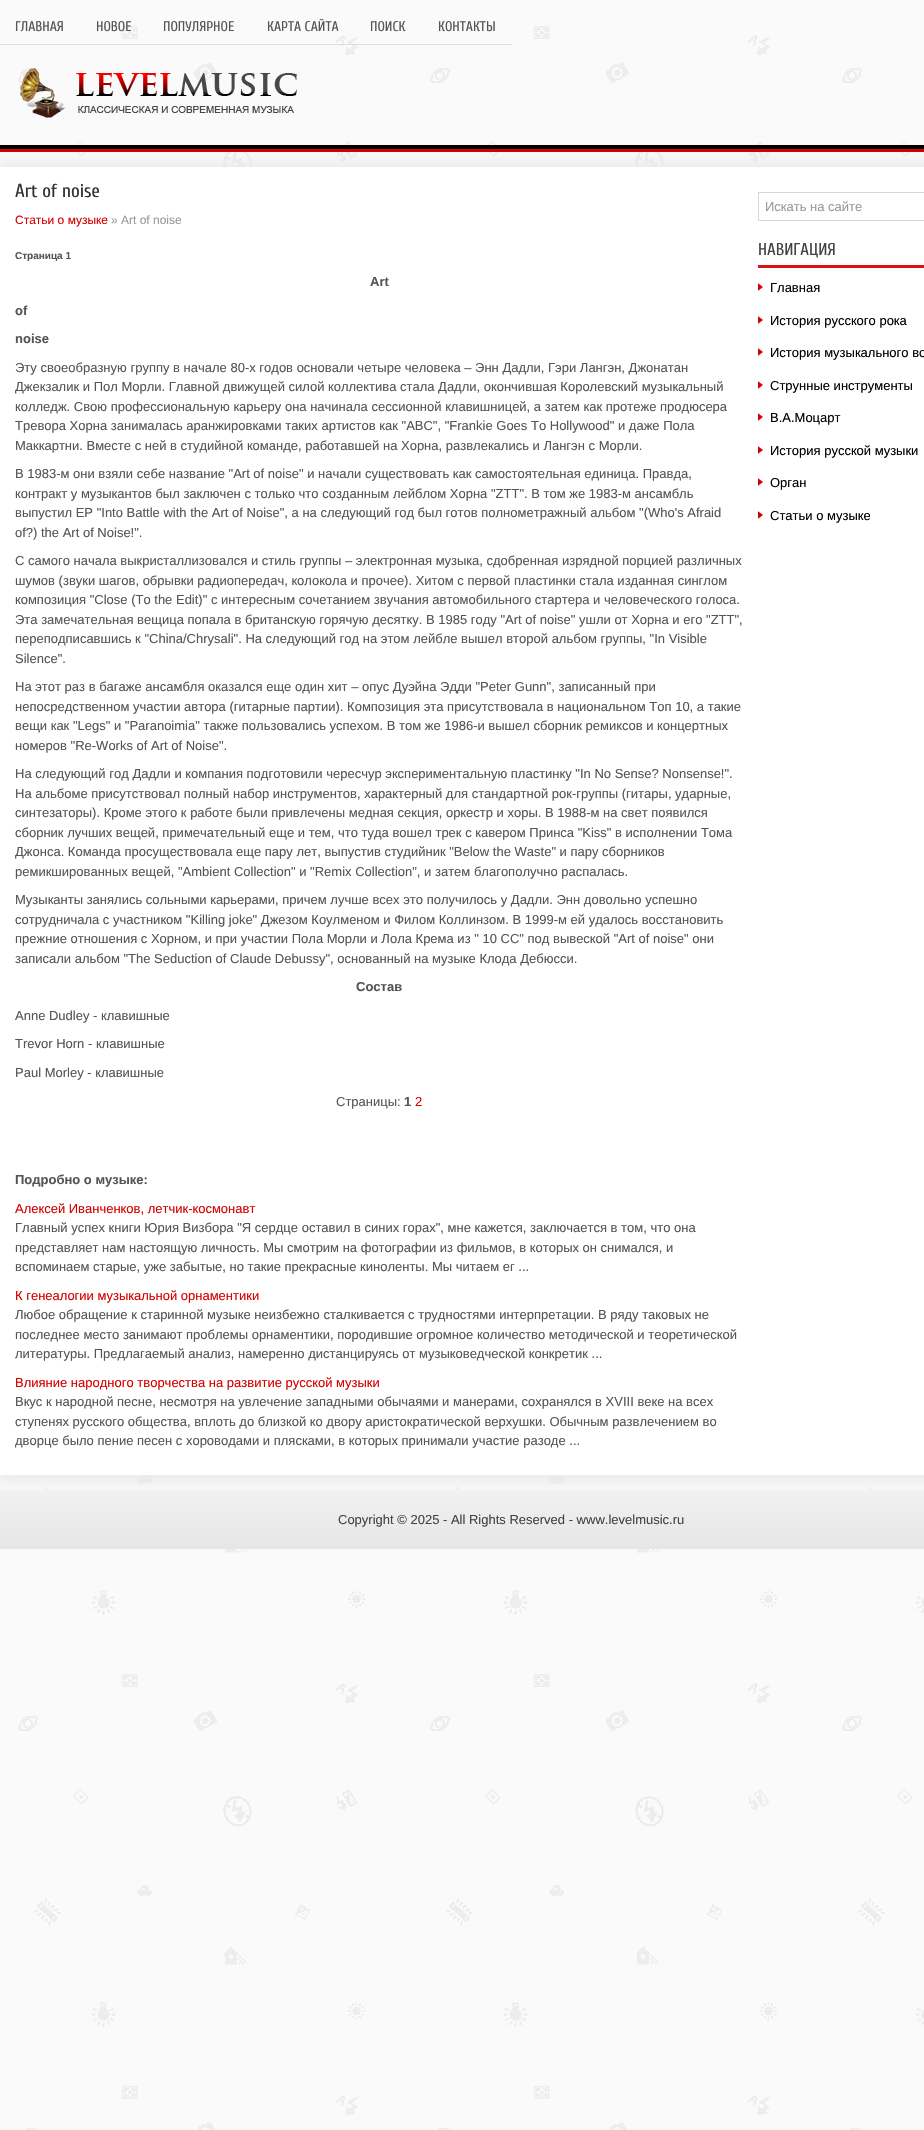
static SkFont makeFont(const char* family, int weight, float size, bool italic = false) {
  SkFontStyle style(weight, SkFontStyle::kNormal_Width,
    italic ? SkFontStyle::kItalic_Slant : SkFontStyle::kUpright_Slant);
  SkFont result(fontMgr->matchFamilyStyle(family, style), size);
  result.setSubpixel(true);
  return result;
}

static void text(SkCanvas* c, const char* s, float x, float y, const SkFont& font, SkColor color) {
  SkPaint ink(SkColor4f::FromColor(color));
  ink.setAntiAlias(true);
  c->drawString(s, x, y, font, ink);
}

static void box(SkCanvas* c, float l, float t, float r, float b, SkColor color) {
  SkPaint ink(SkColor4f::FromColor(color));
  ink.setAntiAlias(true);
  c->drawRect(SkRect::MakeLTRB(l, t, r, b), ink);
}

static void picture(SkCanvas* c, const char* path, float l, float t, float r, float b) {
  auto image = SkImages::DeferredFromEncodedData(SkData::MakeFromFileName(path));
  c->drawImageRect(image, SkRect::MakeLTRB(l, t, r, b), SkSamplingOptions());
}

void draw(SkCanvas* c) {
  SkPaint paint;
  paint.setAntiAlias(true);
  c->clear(0xffffffff);
  picture(c, "img_01.png", 0, 0, 924, 2130);
  box(c, 0, 44, 512, 45, 0xffdddddd);
  SkFont face1 = makeFont("Cuprum", 400, 14);
  text(c, "ГЛАВНАЯ", 15, 31, face1, 0xff555555);
  text(c, "НОВОЕ", 96, 31, face1, 0xff555555);
  text(c, "ПОПУЛЯРНОЕ", 163, 31, face1, 0xff555555);
  text(c, "КАРТА САЙТА", 267, 31, face1, 0xff555555);
  text(c, "ПОИСК", 370, 31, face1, 0xff555555);
  text(c, "КОНТАКТЫ", 438, 31, face1, 0xff555555);
  picture(c, "img_02.png", 20, 68, 297, 118);
  paint.setColor(0xffe9e9e9);
  paint.setMaskFilter(SkMaskFilter::MakeBlur(kNormal_SkBlurStyle, 7.5f));
  c->drawRect(SkRect::MakeLTRB(-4, 163, 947, 1481), paint);
  paint.setMaskFilter(nullptr);
  box(c, 0, 145, 924, 149, 0xff000000);
  box(c, 0, 149, 924, 152, 0xffd20001);
  box(c, 0, 167, 924, 1475, 0xffffffff);
  SkFont face2 = makeFont("Cuprum", 400, 19);
  text(c, "Art of noise", 15, 197, face2, 0xff333333);
  SkFont face3 = makeFont("Liberation Sans", 400, 12);
  text(c, "Статьи о музыке", 15, 224, face3, 0xffd70000);
  text(c, "» Art of noise", 111, 224, face3, 0xff999999);
  SkFont face4 = makeFont("Liberation Sans", 700, 10);
  text(c, "Страница 1", 15, 259, face4, 0xff555555);
  SkFont face5 = makeFont("Liberation Sans", 700, 13);
  text(c, "Art", 370, 286, face5, 0xff555555);
  text(c, "of", 15, 315, face5, 0xff555555);
  text(c, "noise", 15, 343, face5, 0xff555555);
  SkFont face6 = makeFont("Liberation Sans", 400, 13);
  text(c, "Эту своеобразную группу в начале 80-х годов основали четыре человека – Энн Дадли, Гэри Лангэн, Джонатан", 15, 372, face6, 0xff555555);
  text(c, "Джекзалик и Пол Морли. Главной движущей силой коллектива стала Дадли, окончившая Королевский музыкальный", 15, 391, face6, 0xff555555);
  text(c, "колледж. Свою профессиональную карьеру она начинала сессионной клавишницей, а затем как протеже продюсера", 15, 411, face6, 0xff555555);
  text(c, "Тревора Хорна занималась аранжировками таких артистов как \"ABC\", \"Frankie Goes To Hollywood\" и даже Пола", 15, 430, face6, 0xff555555);
  text(c, "Маккартни. Вместе с ней в студийной команде, работавшей на Хорна, развлекались и Лангэн с Морли.", 15, 450, face6, 0xff555555);
  text(c, "В 1983-м они взяли себе название \"Art of noise\" и начали существовать как самостоятельная единица. Правда,", 15, 478, face6, 0xff555555);
  text(c, "контракт у музыкантов был заключен с только что созданным лейблом Хорна \"ZTT\". В том же 1983-м ансамбль", 15, 498, face6, 0xff555555);
  text(c, "выпустил EP \"Into Battle with the Art of Noise\", а на следующий год был готов полнометражный альбом \"(Who's Afraid", 15, 517, face6, 0xff555555);
  text(c, "of?) the Art of Noise!\".", 15, 537, face6, 0xff555555);
  text(c, "С самого начала выкристаллизовался и стиль группы – электронная музыка, сдобренная изрядной порцией различных", 15, 565, face6, 0xff555555);
  text(c, "шумов (звуки шагов, обрывки радиопередач, колокола и прочее). Хитом с первой пластинки стала изданная синглом", 15, 585, face6, 0xff555555);
  text(c, "композиция \"Close (To the Edit)\" с интересным сочетанием звучания автомобильного стартера и человеческого голоса.", 15, 604, face6, 0xff555555);
  text(c, "Эта замечательная вещица попала в британскую горячую десятку. В 1985 году \"Art of noise\" ушли от Хорна и его \"ZTT\",", 15, 624, face6, 0xff555555);
  text(c, "переподписавшись к \"China/Chrysali\". На следующий год на этом лейбле вышел второй альбом группы, \"In Visible", 15, 643, face6, 0xff555555);
  text(c, "Silence\".", 15, 663, face6, 0xff555555);
  text(c, "На этот раз в багаже ансамбля оказался еще один хит – опус Дуэйна Эдди \"Peter Gunn\", записанный при", 15, 691, face6, 0xff555555);
  text(c, "непосредственном участии автора (гитарные партии). Композиция эта присутствовала в национальном Топ 10, а такие", 15, 711, face6, 0xff555555);
  text(c, "вещи как \"Legs\" и \"Paranoimia\" также пользовались успехом. В том же 1986-и вышел сборник ремиксов и концертных", 15, 730, face6, 0xff555555);
  text(c, "номеров \"Re-Works of Art of Noise\".", 15, 750, face6, 0xff555555);
  text(c, "На следующий год Дадли и компания подготовили чересчур экспериментальную пластинку \"In No Sense? Nonsense!\".", 15, 778, face6, 0xff555555);
  text(c, "На альбоме присутствовал полный набор инструментов, характерный для стандартной рок-группы (гитары, ударные,", 15, 798, face6, 0xff555555);
  text(c, "синтезаторы). Кроме этого к работе были привлечены медная секция, оркестр и хоры. В 1988-м на свет появился", 15, 817, face6, 0xff555555);
  text(c, "сборник лучших вещей, примечательный еще и тем, что туда вошел трек с кавером Принса \"Kiss\" в исполнении Тома", 15, 837, face6, 0xff555555);
  text(c, "Джонса. Команда просуществовала еще пару лет, выпустив студийник \"Below the Waste\" и пару сборников", 15, 856, face6, 0xff555555);
  text(c, "ремикшированных вещей, \"Ambient Collection\" и \"Remix Collection\", и затем благополучно распалась.", 15, 876, face6, 0xff555555);
  text(c, "Музыканты занялись сольными карьерами, причем лучше всех это получилось у Дадли. Энн довольно успешно", 15, 904, face6, 0xff555555);
  text(c, "сотрудничала с участником \"Killing joke\" Джезом Коулменом и Филом Коллинзом. В 1999-м ей удалось восстановить", 15, 924, face6, 0xff555555);
  text(c, "прежние отношения с Хорном, и при участии Пола Морли и Лола Крема из \" 10 CC\" под вывеской \"Art of noise\" они", 15, 943, face6, 0xff555555);
  text(c, "записали альбом \"The Seduction of Claude Debussy\", основанный на музыке Клода Дебюсси.", 15, 963, face6, 0xff555555);
  text(c, "Состав", 356, 991, face5, 0xff555555);
  text(c, "Anne Dudley - клавишные", 15, 1020, face6, 0xff555555);
  text(c, "Trevor Horn - клавишные", 15, 1048, face6, 0xff555555);
  text(c, "Paul Morley - клавишные", 15, 1077, face6, 0xff555555);
  text(c, "Страницы:", 336, 1106, face6, 0xff555555);
  text(c, "1", 404, 1106, face5, 0xff555555);
  text(c, "2", 415, 1106, face6, 0xffd70000);
  text(c, "Подробно о музыке:", 15, 1184, face5, 0xff555555);
  text(c, "Алексей Иванченков, летчик-космонавт", 15, 1213, face6, 0xffd70000);
  text(c, "Главный успех книги Юрия Визбора \"Я сердце оставил в синих горах\", мне кажется, заключается в том, что она", 15, 1232, face6, 0xff555555);
  text(c, "представляет нам настоящую личность. Мы смотрим на фотографии из фильмов, в которых он снимался, и", 15, 1252, face6, 0xff555555);
  text(c, "вспоминаем старые, уже забытые, но такие прекрасные киноленты. Мы читаем ег ...", 15, 1271, face6, 0xff555555);
  text(c, "К генеалогии музыкальной орнаментики", 15, 1300, face6, 0xffd70000);
  text(c, "Любое обращение к старинной музыке неизбежно сталкивается с трудностями интерпретации. В ряду таковых не", 15, 1319, face6, 0xff555555);
  text(c, "последнее место занимают проблемы орнаментики, породившие огромное количество методической и теоретической", 15, 1339, face6, 0xff555555);
  text(c, "литературы. Предлагаемый анализ, намеренно дистанцируясь от музыковедческой конкретик ...", 15, 1358, face6, 0xff555555);
  text(c, "Влияние народного творчества на развитие русской музыки", 15, 1387, face6, 0xffd70000);
  text(c, "Вкус к народной песне, несмотря на увлечение западными обычаями и манерами, сохранялся в XVIII веке на всех", 15, 1406, face6, 0xff555555);
  text(c, "ступенях русского общества, вплоть до близкой ко двору аристократической верхушки. Обычным развлечением во", 15, 1426, face6, 0xff555555);
  text(c, "дворце было пение песен с хороводами и плясками, в которых принимали участие разоде ...", 15, 1445, face6, 0xff555555);
  paint.setStyle(SkPaint::kStroke_Style);
  paint.setStrokeWidth(1);
  paint.setColor(0xffd8d8d8);
  c->drawRect(SkRect::MakeLTRB(758.5f, 192.5f, 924.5f, 220.5f), paint);
  text(c, "Искать на сайте", 765, 211, face6, 0xff999999);
  box(c, 758, 265, 924, 268, 0xffda1212);
  SkFont face7 = makeFont("Cuprum", 400, 17);
  text(c, "НАВИГАЦИЯ", 758, 255, face7, 0xff414445);
  picture(c, "img_03.png", 758, 283, 763, 291);
  text(c, "Главная", 770, 292, face6, 0xff000000);
  picture(c, "img_03.png", 758, 316, 763, 324);
  text(c, "История русского рока", 770, 325, face6, 0xff000000);
  picture(c, "img_03.png", 758, 348, 763, 356);
  text(c, "История музыкального во", 770, 357, face6, 0xff000000);
  picture(c, "img_03.png", 758, 381, 763, 389);
  text(c, "Струнные инструменты", 770, 390, face6, 0xff000000);
  picture(c, "img_03.png", 758, 413, 763, 421);
  text(c, "В.А.Моцарт", 770, 422, face6, 0xff000000);
  picture(c, "img_03.png", 758, 446, 763, 454);
  text(c, "История русской музыки", 770, 455, face6, 0xff000000);
  picture(c, "img_03.png", 758, 478, 763, 486);
  text(c, "Орган", 770, 487, face6, 0xff000000);
  picture(c, "img_03.png", 758, 511, 763, 519);
  text(c, "Статьи о музыке", 770, 520, face6, 0xff000000);
  paint.setStyle(SkPaint::kFill_Style);
  {
    const SkColor colors[] = {0xfff1f1f1, 0xffe6e6e6};
    const float stops[] = {0, 1};
    const SkPoint ends[] = {{512, 1490}, {512, 1549}};
    paint.setShader(SkGradientShader::MakeLinear(ends, colors, stops, 2, SkTileMode::kClamp));
    paint.setAlpha(255);
  }
  c->drawRect(SkRect::MakeLTRB(0, 1490, 924, 1549), paint);
  text(c, "Copyright © 2025 - All Rights Reserved - www.levelmusic.ru", 338, 1524, face6, 0xff414445);
}
